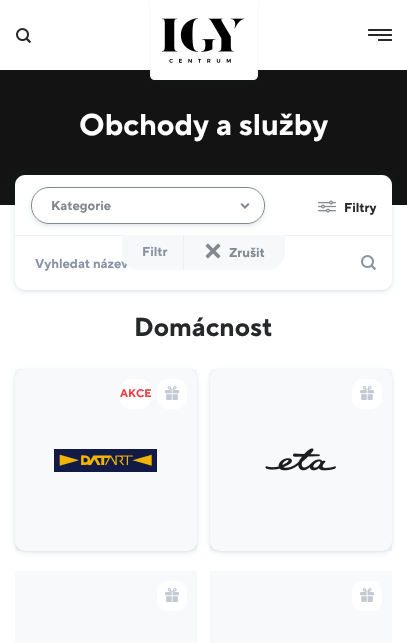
static SkFont makeFont(const char* family, int weight, float size, bool italic = false) {
  SkFontStyle style(weight, SkFontStyle::kNormal_Width,
    italic ? SkFontStyle::kItalic_Slant : SkFontStyle::kUpright_Slant);
  SkFont result(fontMgr->matchFamilyStyle(family, style), size);
  result.setSubpixel(true);
  return result;
}

static void text(SkCanvas* c, const char* s, float x, float y, const SkFont& font, SkColor color) {
  SkPaint ink(SkColor4f::FromColor(color));
  ink.setAntiAlias(true);
  c->drawString(s, x, y, font, ink);
}

static void box(SkCanvas* c, float l, float t, float r, float b, SkColor color) {
  SkPaint ink(SkColor4f::FromColor(color));
  ink.setAntiAlias(true);
  c->drawRect(SkRect::MakeLTRB(l, t, r, b), ink);
}

static void roundBox(SkCanvas* c, float l, float t, float r, float b, float radius, SkColor color) {
  SkPaint ink(SkColor4f::FromColor(color));
  ink.setAntiAlias(true);
  c->drawRoundRect(SkRect::MakeLTRB(l, t, r, b), radius, radius, ink);
}

static void picture(SkCanvas* c, const char* path, float l, float t, float r, float b) {
  auto image = SkImages::DeferredFromEncodedData(SkData::MakeFromFileName(path));
  c->drawImageRect(image, SkRect::MakeLTRB(l, t, r, b), SkSamplingOptions());
}

void draw(SkCanvas* c) {
  SkPaint paint;
  paint.setAntiAlias(true);
  c->clear(0xffffffff);
  picture(c, "img_01.png", 16, 28, 31, 43);
  box(c, 0, 70, 407, 205, 0xff131313);
  paint.setColor(0x1a002236);
  paint.setMaskFilter(SkMaskFilter::MakeBlur(kNormal_SkBlurStyle, 1));
  c->drawRoundRect(SkRect::MakeLTRB(150, 1, 258, 81), 5, 5, paint);
  paint.setMaskFilter(nullptr);
  paint.setColor(0xffffffff);
  c->drawPath(SkPathBuilder().moveTo(150, 0).lineTo(258, 0).lineTo(258, 75).cubicTo(258, 78, 256, 80, 253, 80).lineTo(155, 80).cubicTo(152, 80, 150, 78, 150, 75).close().detach(), paint);
  picture(c, "img_02.png", 162, 18, 245, 63);
  roundBox(c, 368, 29, 392, 31, 0.5f, 0xff272829);
  roundBox(c, 368, 34, 392, 36, 0.5f, 0xff272829);
  roundBox(c, 378, 39, 392, 41, 0.5f, 0xff272829);
  SkFont face1 = makeFont("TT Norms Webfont", 700, 30);
  text(c, "Obchody a služby", 79, 135, face1, 0xffffffff);
  c->save();
  c->clipPath(SkPathBuilder(SkPathFillType::kEvenOdd).moveTo(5, 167).lineTo(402, 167).lineTo(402, 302).lineTo(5, 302).close().moveTo(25, 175).lineTo(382, 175).cubicTo(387.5f, 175, 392, 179.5f, 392, 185).lineTo(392, 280).cubicTo(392, 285.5f, 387.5f, 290, 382, 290).lineTo(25, 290).cubicTo(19.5f, 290, 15, 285.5f, 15, 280).lineTo(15, 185).cubicTo(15, 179.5f, 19.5f, 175, 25, 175).close().detach(), true);
  paint.setColor(0x12002236);
  paint.setMaskFilter(SkMaskFilter::MakeBlur(kNormal_SkBlurStyle, 3));
  c->drawRoundRect(SkRect::MakeLTRB(15, 177, 392, 292), 10, 10, paint);
  paint.setMaskFilter(nullptr);
  c->restore();
  c->save();
  c->clipPath(SkPathBuilder(SkPathFillType::kEvenOdd).moveTo(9, 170).lineTo(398, 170).lineTo(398, 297).lineTo(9, 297).close().moveTo(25, 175).lineTo(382, 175).cubicTo(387.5f, 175, 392, 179.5f, 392, 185).lineTo(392, 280).cubicTo(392, 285.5f, 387.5f, 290, 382, 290).lineTo(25, 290).cubicTo(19.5f, 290, 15, 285.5f, 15, 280).lineTo(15, 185).cubicTo(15, 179.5f, 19.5f, 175, 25, 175).close().detach(), true);
  paint.setMaskFilter(SkMaskFilter::MakeBlur(kNormal_SkBlurStyle, 1.5f));
  c->drawRoundRect(SkRect::MakeLTRB(15, 176, 392, 291), 10, 10, paint);
  paint.setMaskFilter(nullptr);
  c->restore();
  paint.setColor(0xffffffff);
  c->drawPath(SkPathBuilder().moveTo(25, 175).lineTo(382, 175).cubicTo(387.5f, 175, 392, 179.5f, 392, 185).lineTo(392, 236).lineTo(15, 236).lineTo(15, 185).cubicTo(15, 179.5f, 19.5f, 175, 25, 175).close().detach(), paint);
  box(c, 15, 235, 392, 236, 0xffeef1f4);
  SkFont face2 = makeFont("TT Norms Webfont", 700, 13);
  text(c, "Vyhledat název", 35, 268, face2, 0xff8894a5);
  paint.setColor(0xfff6f8fa);
  c->drawPath(SkPathBuilder().moveTo(122, 235).lineTo(285, 235).lineTo(285, 252.5f).cubicTo(285, 262, 277, 270, 267.5f, 270).lineTo(139.5f, 270).cubicTo(130, 270, 122, 262, 122, 252.5f).close().detach(), paint);
  box(c, 183, 235, 184, 270, 0xffeef1f4);
  c->save();
  c->clipPath(SkPathBuilder(SkPathFillType::kEvenOdd).moveTo(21, 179).lineTo(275, 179).lineTo(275, 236).lineTo(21, 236).close().moveTo(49, 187).lineTo(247, 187).cubicTo(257, 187, 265, 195, 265, 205).lineTo(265, 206).cubicTo(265, 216, 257, 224, 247, 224).lineTo(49, 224).cubicTo(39, 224, 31, 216, 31, 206).lineTo(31, 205).cubicTo(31, 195, 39, 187, 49, 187).close().detach(), true);
  paint.setColor(0x12002236);
  paint.setMaskFilter(SkMaskFilter::MakeBlur(kNormal_SkBlurStyle, 3));
  c->drawRoundRect(SkRect::MakeLTRB(31, 189, 265, 226), 18, 18, paint);
  paint.setMaskFilter(nullptr);
  c->restore();
  c->save();
  c->clipPath(SkPathBuilder(SkPathFillType::kEvenOdd).moveTo(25, 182).lineTo(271, 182).lineTo(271, 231).lineTo(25, 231).close().moveTo(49, 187).lineTo(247, 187).cubicTo(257, 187, 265, 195, 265, 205).lineTo(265, 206).cubicTo(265, 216, 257, 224, 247, 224).lineTo(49, 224).cubicTo(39, 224, 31, 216, 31, 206).lineTo(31, 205).cubicTo(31, 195, 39, 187, 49, 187).close().detach(), true);
  paint.setMaskFilter(SkMaskFilter::MakeBlur(kNormal_SkBlurStyle, 1.5f));
  c->drawRoundRect(SkRect::MakeLTRB(31, 188, 265, 225), 18, 18, paint);
  paint.setMaskFilter(nullptr);
  c->restore();
  paint.setStyle(SkPaint::kStroke_Style);
  paint.setStrokeWidth(1);
  paint.setColor(0xff838990);
  c->drawRoundRect(SkRect::MakeLTRB(31.5f, 187.5f, 264.5f, 223.5f), 17.5f, 17.5f, paint);
  text(c, "Kategorie", 51, 210, face2, 0xff838990);
  picture(c, "img_03.png", 240, 203, 250, 209);
  picture(c, "img_04.png", 318, 200, 336, 213);
  text(c, "Filtry", 344, 212, face2, 0xff272829);
  text(c, "Filtr", 142, 256, face2, 0xff8894a5);
  picture(c, "img_05.png", 205, 243, 221, 259);
  text(c, "Zrušit", 229, 257, face2, 0xff838990);
  picture(c, "img_06.png", 361, 255, 376, 270);
  SkFont face3 = makeFont("TT Norms Webfont", 700, 26);
  text(c, "Domácnost", 134, 336, face3, 0xff272829);
  c->save();
  c->clipPath(SkPathBuilder(SkPathFillType::kEvenOdd).moveTo(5, 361).lineTo(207, 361).lineTo(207, 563).lineTo(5, 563).close().moveTo(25, 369).lineTo(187, 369).cubicTo(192.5f, 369, 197, 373.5f, 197, 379).lineTo(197, 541).cubicTo(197, 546.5f, 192.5f, 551, 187, 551).lineTo(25, 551).cubicTo(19.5f, 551, 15, 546.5f, 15, 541).lineTo(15, 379).cubicTo(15, 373.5f, 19.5f, 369, 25, 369).close().detach(), true);
  paint.setStyle(SkPaint::kFill_Style);
  paint.setColor(0x12002236);
  paint.setMaskFilter(SkMaskFilter::MakeBlur(kNormal_SkBlurStyle, 3));
  c->drawRoundRect(SkRect::MakeLTRB(15, 371, 197, 553), 10, 10, paint);
  paint.setMaskFilter(nullptr);
  c->restore();
  c->save();
  c->clipPath(SkPathBuilder(SkPathFillType::kEvenOdd).moveTo(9, 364).lineTo(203, 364).lineTo(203, 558).lineTo(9, 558).close().moveTo(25, 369).lineTo(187, 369).cubicTo(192.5f, 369, 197, 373.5f, 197, 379).lineTo(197, 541).cubicTo(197, 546.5f, 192.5f, 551, 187, 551).lineTo(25, 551).cubicTo(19.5f, 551, 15, 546.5f, 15, 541).lineTo(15, 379).cubicTo(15, 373.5f, 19.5f, 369, 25, 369).close().detach(), true);
  paint.setMaskFilter(SkMaskFilter::MakeBlur(kNormal_SkBlurStyle, 1.5f));
  c->drawRoundRect(SkRect::MakeLTRB(15, 370, 197, 552), 10, 10, paint);
  paint.setMaskFilter(nullptr);
  c->restore();
  picture(c, "img_07.png", 54, 449, 157, 472);
  box(c, 15, 369, 197, 551, 0x08003a5d);
  roundBox(c, 120, 379, 151, 409, 10, 0xffffffff);
  SkFont face4 = makeFont("TT Norms Webfont", 700, 11);
  text(c, "AKCE", 120, 397, face4, 0xffec3e46);
  roundBox(c, 157, 379, 187, 409, 10, 0xffffffff);
  picture(c, "img_08.png", 165, 386, 179, 400);
  c->save();
  c->clipPath(SkPathBuilder(SkPathFillType::kEvenOdd).moveTo(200, 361).lineTo(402, 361).lineTo(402, 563).lineTo(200, 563).close().moveTo(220, 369).lineTo(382, 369).cubicTo(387.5f, 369, 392, 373.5f, 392, 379).lineTo(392, 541).cubicTo(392, 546.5f, 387.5f, 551, 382, 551).lineTo(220, 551).cubicTo(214.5f, 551, 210, 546.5f, 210, 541).lineTo(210, 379).cubicTo(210, 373.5f, 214.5f, 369, 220, 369).close().detach(), true);
  paint.setMaskFilter(SkMaskFilter::MakeBlur(kNormal_SkBlurStyle, 3));
  c->drawRoundRect(SkRect::MakeLTRB(210, 371, 392, 553), 10, 10, paint);
  paint.setMaskFilter(nullptr);
  c->restore();
  c->save();
  c->clipPath(SkPathBuilder(SkPathFillType::kEvenOdd).moveTo(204, 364).lineTo(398, 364).lineTo(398, 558).lineTo(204, 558).close().moveTo(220, 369).lineTo(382, 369).cubicTo(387.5f, 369, 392, 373.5f, 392, 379).lineTo(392, 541).cubicTo(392, 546.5f, 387.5f, 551, 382, 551).lineTo(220, 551).cubicTo(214.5f, 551, 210, 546.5f, 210, 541).lineTo(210, 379).cubicTo(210, 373.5f, 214.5f, 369, 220, 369).close().detach(), true);
  paint.setMaskFilter(SkMaskFilter::MakeBlur(kNormal_SkBlurStyle, 1.5f));
  c->drawRoundRect(SkRect::MakeLTRB(210, 370, 392, 552), 10, 10, paint);
  paint.setMaskFilter(nullptr);
  c->restore();
  picture(c, "img_09.png", 265, 448, 336, 471);
  box(c, 210, 369, 392, 551, 0x08003a5d);
  roundBox(c, 352, 379, 382, 409, 10, 0xffffffff);
  picture(c, "img_08.png", 360, 386, 374, 400);
  box(c, 15, 571, 197, 643, 0x08003a5d);
  roundBox(c, 157, 581, 187, 611, 10, 0xffffffff);
  picture(c, "img_08.png", 165, 588, 179, 602);
  box(c, 210, 571, 392, 643, 0x08003a5d);
  roundBox(c, 352, 581, 382, 611, 10, 0xffffffff);
  picture(c, "img_08.png", 360, 588, 374, 602);
}
